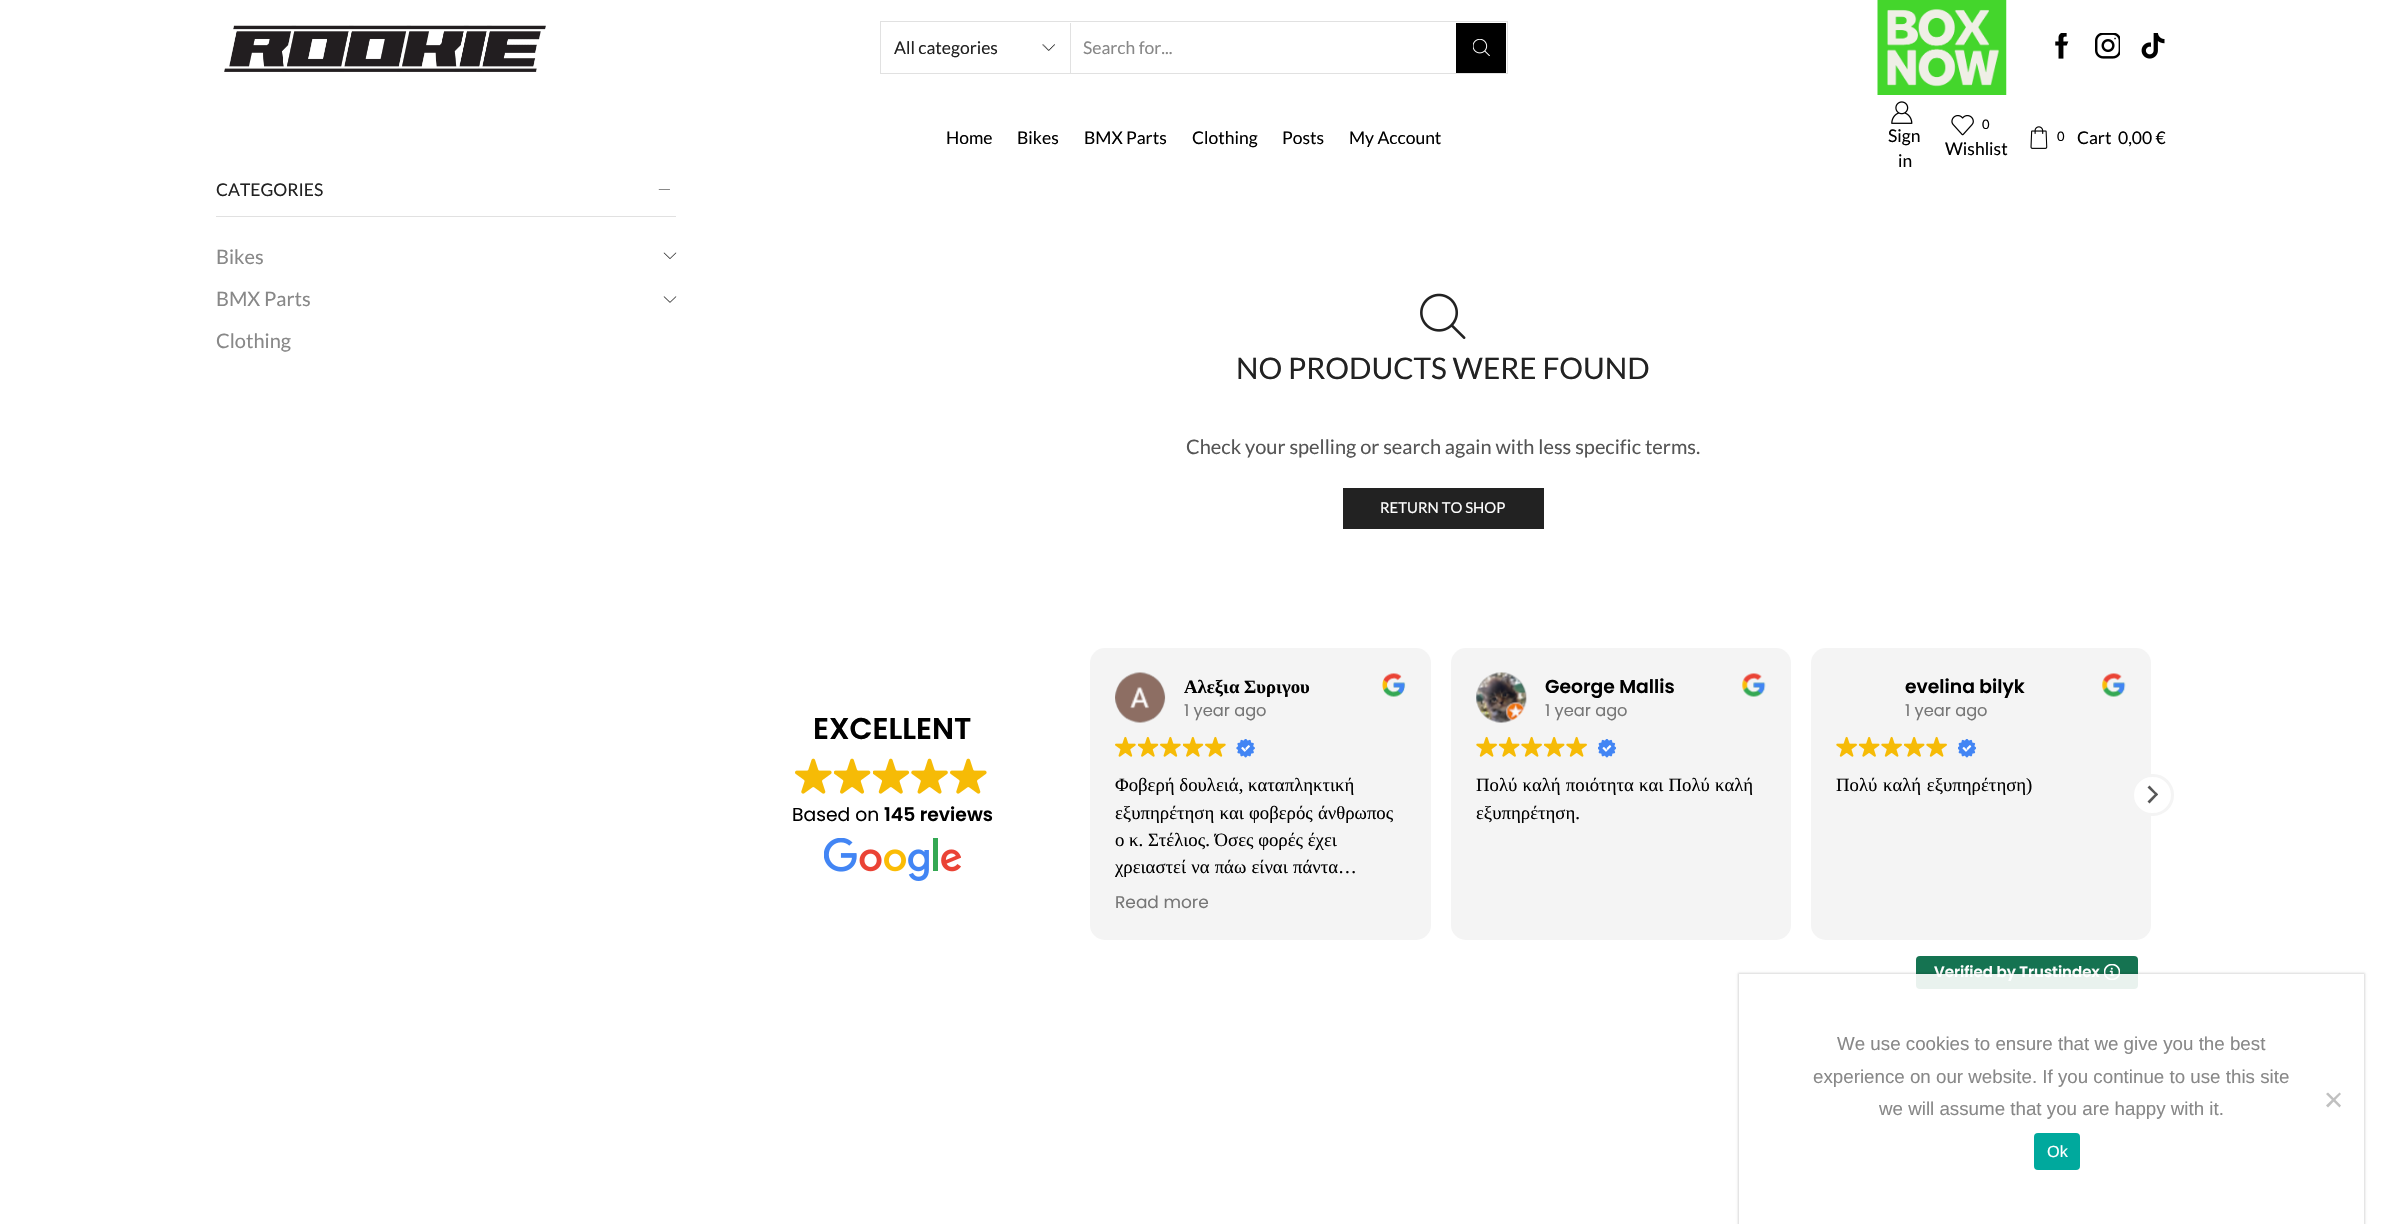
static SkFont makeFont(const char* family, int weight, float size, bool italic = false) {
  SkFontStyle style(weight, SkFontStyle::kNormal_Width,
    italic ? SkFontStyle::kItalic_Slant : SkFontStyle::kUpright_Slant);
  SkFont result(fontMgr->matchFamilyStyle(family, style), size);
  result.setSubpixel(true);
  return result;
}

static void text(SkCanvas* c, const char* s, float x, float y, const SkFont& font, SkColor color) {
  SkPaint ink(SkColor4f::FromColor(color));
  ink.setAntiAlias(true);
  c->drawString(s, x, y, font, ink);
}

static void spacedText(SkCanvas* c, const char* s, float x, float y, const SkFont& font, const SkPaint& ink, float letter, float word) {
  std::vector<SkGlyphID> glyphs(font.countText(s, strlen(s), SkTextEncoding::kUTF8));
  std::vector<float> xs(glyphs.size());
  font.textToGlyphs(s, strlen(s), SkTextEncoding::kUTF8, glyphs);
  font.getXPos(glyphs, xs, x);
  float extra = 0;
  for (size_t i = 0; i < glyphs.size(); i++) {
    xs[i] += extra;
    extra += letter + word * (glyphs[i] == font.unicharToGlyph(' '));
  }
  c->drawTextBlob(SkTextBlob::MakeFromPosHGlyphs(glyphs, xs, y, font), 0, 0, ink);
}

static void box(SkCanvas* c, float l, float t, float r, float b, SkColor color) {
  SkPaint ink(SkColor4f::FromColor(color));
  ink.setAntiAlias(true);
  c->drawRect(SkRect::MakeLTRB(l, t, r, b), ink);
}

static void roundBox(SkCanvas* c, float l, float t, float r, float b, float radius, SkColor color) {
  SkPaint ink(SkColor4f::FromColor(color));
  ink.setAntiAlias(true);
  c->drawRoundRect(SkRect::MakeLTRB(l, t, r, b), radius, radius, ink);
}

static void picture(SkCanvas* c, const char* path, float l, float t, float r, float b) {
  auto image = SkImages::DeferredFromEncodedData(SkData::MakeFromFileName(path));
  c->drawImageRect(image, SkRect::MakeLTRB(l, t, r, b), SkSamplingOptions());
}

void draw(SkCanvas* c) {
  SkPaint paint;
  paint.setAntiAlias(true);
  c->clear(0xffffffff);
  picture(c, "img_01.png", 224, 25, 546, 72);
  paint.setStyle(SkPaint::kStroke_Style);
  paint.setStrokeWidth(1);
  paint.setColor(0xffe1e1e1);
  c->drawRect(SkRect::MakeLTRB(880.5f, 21.5f, 1507.5f, 73.5f), paint);
  picture(c, "img_02.png", 1042, 44, 1055, 51);
  box(c, 1070, 23, 1071, 73, 0xffe1e1e1);
  SkFont face1 = makeFont("Lato", 400, 17.5f);
  text(c, "All categories", 894, 54, face1, 0xff222222);
  text(c, "Search for...", 1083, 54, face1, 0xff888888);
  box(c, 1456, 23, 1506, 73, 0xff000000);
  picture(c, "img_03.png", 1473, 39, 1490, 56);
  picture(c, "img_04.png", 1877, 0, 2007, 95);
  picture(c, "img_05.png", 2055, 33, 2069, 59);
  picture(c, "img_06.png", 2095, 33, 2120, 59);
  picture(c, "img_07.png", 2141, 33, 2165, 59);
  text(c, "Home", 946, 144, face1, 0xff000000);
  text(c, "Bikes", 1017, 144, face1, 0xff000000);
  text(c, "BMX Parts", 1084, 144, face1, 0xff000000);
  text(c, "Clothing", 1192, 144, face1, 0xff000000);
  text(c, "Posts", 1282, 144, face1, 0xff000000);
  text(c, "My Account", 1349, 144, face1, 0xff000000);
  picture(c, "img_08.png", 1891, 101, 1913, 124);
  text(c, "Sign", 1888, 142, face1, 0xff000000);
  text(c, "in", 1898, 167, face1, 0xff000000);
  picture(c, "img_09.png", 1951, 115, 1974, 136);
  SkFont face2 = makeFont("Lato", 400, 13);
  text(c, "0", 1982, 129, face2, 0xff000000);
  text(c, "Wishlist", 1945, 155, face1, 0xff000000);
  picture(c, "img_10.png", 2030, 126, 2048, 149);
  text(c, "0", 2057, 141, face2, 0xff000000);
  text(c, "Cart", 2077, 144, face1, 0xff000000);
  text(c, "0,00 €", 2118, 144, face1, 0xff000000);
  box(c, 216, 216, 676, 217, 0xffe1e1e1);
  text(c, "CATEGORIES", 216, 196, face1, 0xff222222);
  picture(c, "img_11.png", 658, 189, 670, 190);
  SkFont face3 = makeFont("Lato", 400, 20);
  text(c, "Bikes", 216, 264, face3, 0xff888888);
  picture(c, "img_12.png", 663, 252, 677, 259);
  text(c, "BMX Parts", 216, 306, face3, 0xff888888);
  picture(c, "img_13.png", 663, 296, 677, 303);
  text(c, "Clothing", 216, 348, face3, 0xff888888);
  picture(c, "img_14.png", 1420, 293, 1466, 339);
  SkFont face4 = makeFont("Lato", 400, 29.75f);
  text(c, "NO PRODUCTS WERE FOUND", 1236, 379, face4, 0xff222222);
  text(c, "Check your spelling or search again with less specific terms.", 1186, 454, face3, 0xff555555);
  box(c, 1343, 488, 1544, 529, 0xff222222);
  SkFont face5 = makeFont("Lato", 400, 14.9f);
  text(c, "RETURN TO SHOP", 1380, 513, face5, 0xffffffff);
  SkFont face6 = makeFont("Poppins", 600, 30);
  text(c, "EXCELLENT", 813, 739, face6, 0xff000000);
  picture(c, "img_15.png", 795, 758, 832, 794);
  picture(c, "img_16.png", 834, 758, 871, 794);
  picture(c, "img_17.png", 873, 758, 910, 794);
  picture(c, "img_18.png", 911, 758, 948, 794);
  picture(c, "img_15.png", 950, 758, 987, 794);
  SkFont face7 = makeFont("Poppins", 400, 18.75f);
  text(c, "Based on", 792, 821, face7, 0xff000000);
  SkFont face8 = makeFont("Poppins", 600, 18.75f);
  text(c, "145 reviews", 884, 821, face8, 0xff000000);
  picture(c, "img_19.png", 824, 838, 961, 881);
  roundBox(c, 1090, 648, 1431, 940, 15, 0xfff4f4f4);
  picture(c, "img_20.png", 1115, 672, 1166, 723);
  SkFont face9 = makeFont("Liberation Serif", 700, 18.75f);
  text(c, "Αλεξια Συριγου", 1184, 693, face9, 0xff000000);
  SkFont face10 = makeFont("Poppins", 400, 16.25f);
  text(c, "1 year ago", 1184, 716, face10, 0xff767676);
  picture(c, "img_21.png", 1382, 673, 1406, 697);
  picture(c, "img_22.png", 1115, 736, 1136, 757);
  picture(c, "img_23.png", 1138, 737, 1159, 757);
  picture(c, "img_22.png", 1160, 736, 1181, 757);
  picture(c, "img_23.png", 1183, 737, 1204, 757);
  picture(c, "img_22.png", 1205, 736, 1226, 757);
  picture(c, "img_24.png", 1236, 739, 1255, 758);
  SkFont face11 = makeFont("Liberation Serif", 400, 18.75f);
  text(c, "Φοβερή δουλειά, καταπληκτική", 1115, 791, face11, 0xff000000);
  paint.setStyle(SkPaint::kFill_Style);
  paint.setColor(0xff000000);
  spacedText(c, "εξυπηρέτηση και φοβερός άνθρωπος", 1115, 819, face11, paint, 0, 0.5f);
  text(c, "ο κ. Στέλιος. Όσες φορές έχει", 1115, 846, face11, 0xff000000);
  spacedText(c, "χρειαστεί να πάω είναι πάντα…", 1115, 873, face11, paint, 0, 0.5f);
  SkFont face12 = makeFont("Poppins", 400, 17);
  text(c, "Read more", 1115, 908, face12, 0xff767676);
  roundBox(c, 1451, 648, 1791, 940, 15, 0xfff4f4f4);
  picture(c, "img_25.png", 1476, 672, 1527, 723);
  text(c, "George Mallis", 1545, 693, face8, 0xff000000);
  text(c, "1 year ago", 1545, 716, face10, 0xff767676);
  picture(c, "img_26.png", 1742, 673, 1766, 697);
  picture(c, "img_27.png", 1476, 736, 1497, 757);
  picture(c, "img_28.png", 1499, 737, 1520, 757);
  picture(c, "img_27.png", 1521, 736, 1542, 757);
  picture(c, "img_28.png", 1544, 737, 1565, 757);
  picture(c, "img_27.png", 1566, 736, 1587, 757);
  picture(c, "img_29.png", 1598, 739, 1616, 758);
  spacedText(c, "Πολύ καλή ποιότητα και Πολύ καλή", 1476, 791, face11, paint, 0, 0.5f);
  text(c, "εξυπηρέτηση.", 1476, 819, face11, 0xff000000);
  roundBox(c, 1811, 648, 2151, 940, 15, 0xfff4f4f4);
  text(c, "evelina bilyk", 1905, 693, face8, 0xff000000);
  text(c, "1 year ago", 1905, 716, face10, 0xff767676);
  picture(c, "img_30.png", 2102, 673, 2126, 697);
  picture(c, "img_27.png", 1836, 736, 1857, 757);
  picture(c, "img_28.png", 1859, 737, 1880, 757);
  picture(c, "img_27.png", 1881, 736, 1902, 757);
  picture(c, "img_28.png", 1904, 737, 1925, 757);
  picture(c, "img_27.png", 1926, 736, 1947, 757);
  picture(c, "img_29.png", 1958, 739, 1976, 758);
  spacedText(c, "Πολύ καλή εξυπηρέτηση)", 1836, 791, face11, paint, 0, 1);
  paint.setColor(0xffffffff);
  c->drawRoundRect(SkRect::MakeLTRB(2132.5f, 775.5f, 2172.5f, 814.5f), 19.5f, 19.5f, paint);
  paint.setStyle(SkPaint::kStroke_Style);
  paint.setStrokeWidth(3);
  paint.setColor(0xfff4f4f4);
  c->drawRoundRect(SkRect::MakeLTRB(2132.5f, 775.5f, 2172.5f, 814.5f), 19.5f, 19.5f, paint);
  paint.setStyle(SkPaint::kFill_Style);
  paint.setColor(0xff575757);
  c->drawPath(SkPathBuilder().moveTo(2156.5f, 796).lineTo(2147.5f, 787.5f).lineTo(2149.5f, 785.5f).lineTo(2158, 794.5f).close().detach(), paint);
  c->drawPath(SkPathBuilder().moveTo(2149.5f, 803.5f).lineTo(2147.5f, 801.5f).lineTo(2156.5f, 792.5f).lineTo(2158, 794.5f).close().detach(), paint);
  roundBox(c, 1916, 956, 2138, 989, 4, 0xff157351);
  SkFont face13 = makeFont("Poppins", 600, 15);
  text(c, "Verified by Trustindex", 1934, 977, face13, 0xffffffff);
  picture(c, "img_31.png", 2104, 964, 2120, 980);
  c->save();
  c->clipPath(SkPathBuilder(SkPathFillType::kEvenOdd).moveTo(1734, 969).lineTo(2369, 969).lineTo(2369, 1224).lineTo(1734, 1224).close().moveTo(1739, 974).lineTo(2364, 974).lineTo(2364, 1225).lineTo(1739, 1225).close().detach(), true);
  paint.setColor(0x26000000);
  paint.setMaskFilter(SkMaskFilter::MakeBlur(kNormal_SkBlurStyle, 1));
  c->drawRect(SkRect::MakeLTRB(1738, 973, 2365, 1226), paint);
  paint.setMaskFilter(nullptr);
  c->restore();
  box(c, 1916, 974, 2364, 1224, 0xe6ffffff);
  SkFont face14 = makeFont("Liberation Sans", 400, 18.75f);
  text(c, "We use cookies to ensure that we give you the best", 1837, 1050, face14, 0xff888888);
  text(c, "experience on our website. If you continue to use this site", 1813, 1083, face14, 0xff888888);
  text(c, "we will assume that you are happy with it.", 1879, 1115, face14, 0xff888888);
  paint.setColor(0xffc0c0c0);
  c->drawPath(SkPathBuilder().moveTo(2339.5f, 1092.5f).lineTo(2341, 1094).lineTo(2328, 1107.5f).lineTo(2326, 1105.5f).close().detach(), paint);
  c->drawPath(SkPathBuilder().moveTo(2326, 1094).lineTo(2328, 1092.5f).lineTo(2341, 1105.5f).lineTo(2339.5f, 1107.5f).close().detach(), paint);
  roundBox(c, 2034, 1133, 2080, 1170, 4, 0xff00a99d);
  SkFont face15 = makeFont("Liberation Sans", 400, 16.25f);
  text(c, "Ok", 2047, 1157, face15, 0xffffffff);
}
